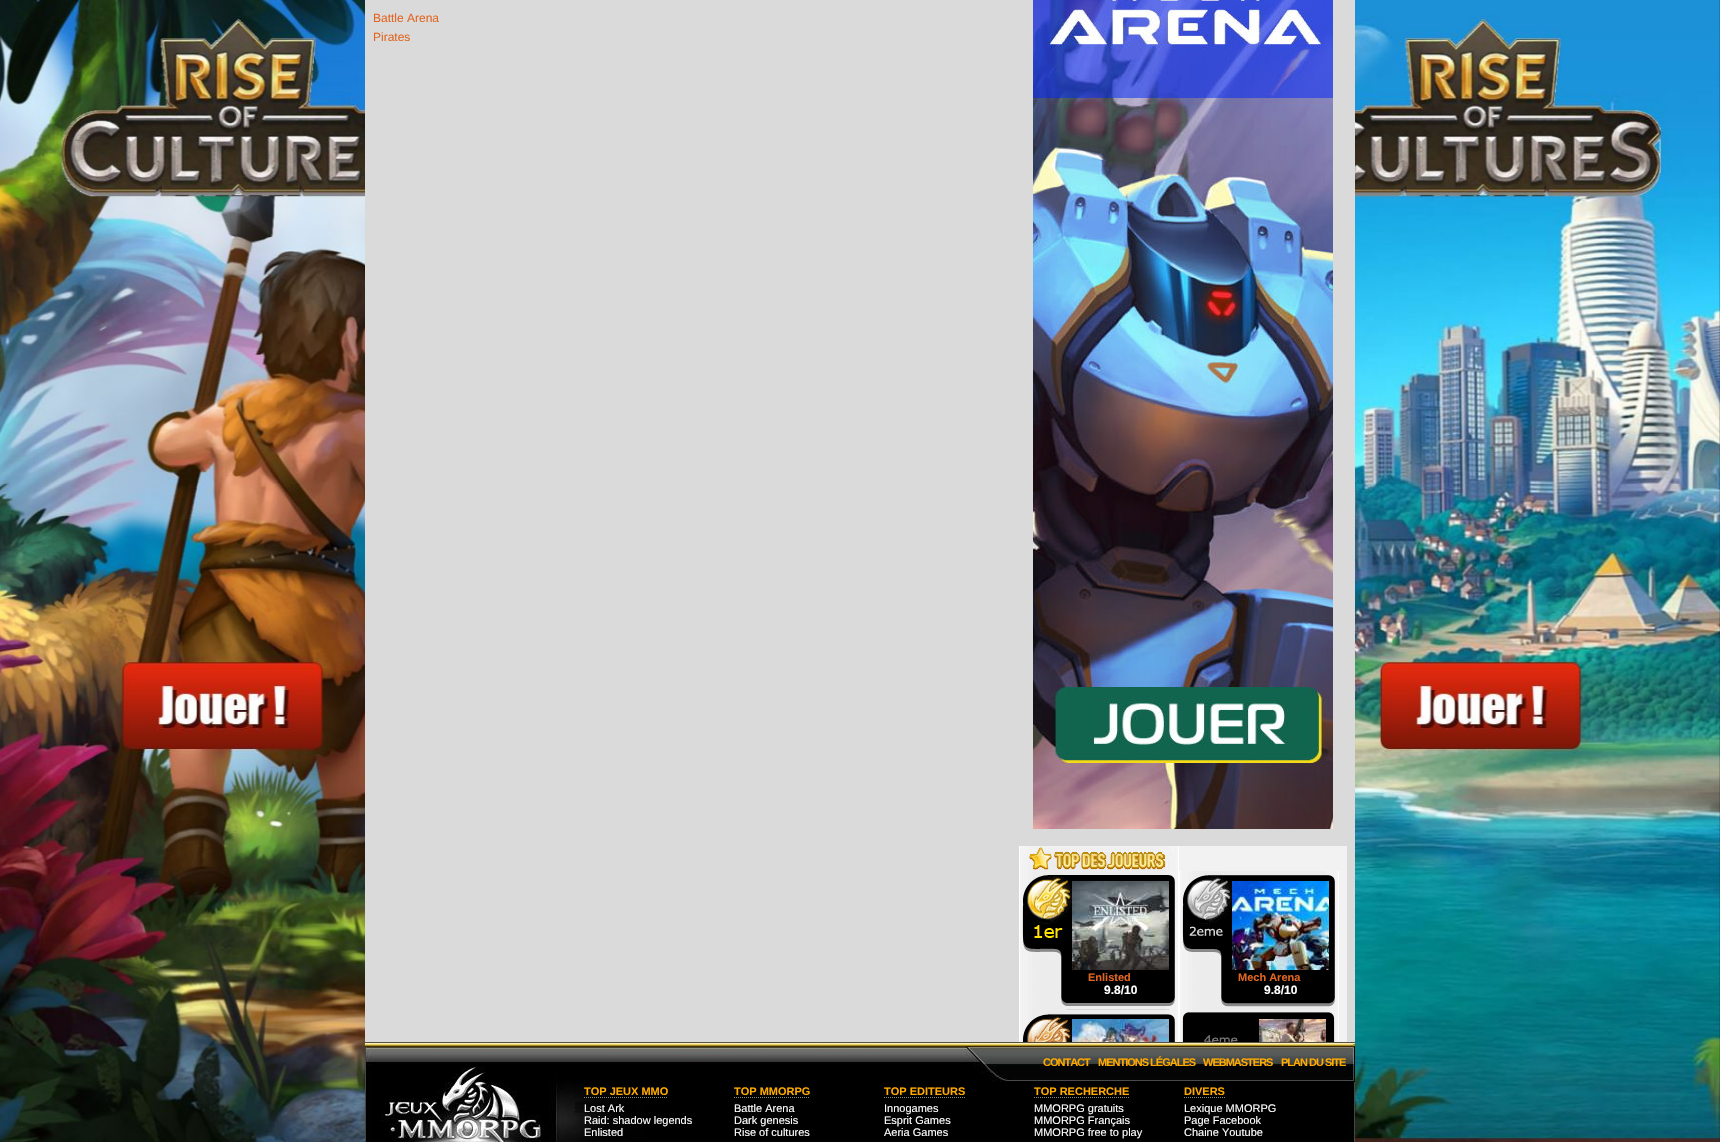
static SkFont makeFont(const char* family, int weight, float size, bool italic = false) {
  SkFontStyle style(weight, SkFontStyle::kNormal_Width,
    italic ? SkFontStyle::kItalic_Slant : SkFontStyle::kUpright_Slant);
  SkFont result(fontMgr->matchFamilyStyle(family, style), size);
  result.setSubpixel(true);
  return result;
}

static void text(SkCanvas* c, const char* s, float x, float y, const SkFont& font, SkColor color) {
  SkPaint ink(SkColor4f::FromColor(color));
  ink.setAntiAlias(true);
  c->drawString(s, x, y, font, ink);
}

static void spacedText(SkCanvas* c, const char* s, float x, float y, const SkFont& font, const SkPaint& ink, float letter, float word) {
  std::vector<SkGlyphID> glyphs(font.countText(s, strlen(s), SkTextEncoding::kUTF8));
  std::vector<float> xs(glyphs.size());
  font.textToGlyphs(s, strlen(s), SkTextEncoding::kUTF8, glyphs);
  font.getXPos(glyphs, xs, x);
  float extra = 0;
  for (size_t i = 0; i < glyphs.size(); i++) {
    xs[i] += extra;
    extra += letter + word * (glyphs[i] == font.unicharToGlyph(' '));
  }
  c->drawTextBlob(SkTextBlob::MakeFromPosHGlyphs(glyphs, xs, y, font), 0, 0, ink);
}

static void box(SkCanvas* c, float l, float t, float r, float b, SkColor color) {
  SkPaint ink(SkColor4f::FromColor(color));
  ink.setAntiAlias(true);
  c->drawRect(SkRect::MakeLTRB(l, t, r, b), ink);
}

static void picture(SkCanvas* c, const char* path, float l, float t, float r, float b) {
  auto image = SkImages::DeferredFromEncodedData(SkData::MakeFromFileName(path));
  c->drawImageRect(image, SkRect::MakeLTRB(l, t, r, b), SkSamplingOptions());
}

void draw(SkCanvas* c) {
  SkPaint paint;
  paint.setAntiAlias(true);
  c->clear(0xffffffff);
  picture(c, "img_01.png", 1719, 0, 1720, 1142);
  picture(c, "img_02.png", 0, 0, 1720, 1142);
  box(c, 365, 0, 1355, 1042, 0xffdadada);
  SkFont face1 = makeFont("Liberation Sans", 400, 12);
  text(c, "Battle Arena", 373, 22, face1, 0xffe26622);
  text(c, "Pirates", 373, 41, face1, 0xffe26622);
  picture(c, "img_03.png", 1033, 0, 1333, 829);
  box(c, 1179, 846, 1347, 1042, 0xfff2f2f2);
  picture(c, "img_04.png", 1019, 846, 1179, 1009);
  picture(c, "img_05.png", 1022, 846, 1175, 871);
  picture(c, "img_06.png", 1022, 871, 1175, 1009);
  picture(c, "img_07.png", 1072, 881, 1169, 970);
  SkFont face2 = makeFont("Liberation Sans", 700, 11);
  text(c, "Enlisted", 1088, 981, face2, 0xffe26622);
  SkFont face3 = makeFont("Liberation Sans", 700, 12);
  text(c, "9.8/10", 1104, 994, face3, 0xffffffff);
  picture(c, "img_08.png", 1179, 871, 1339, 1009);
  picture(c, "img_09.png", 1232, 881, 1329, 970);
  text(c, "Mech Arena", 1238, 981, face2, 0xffe26622);
  text(c, "9.8/10", 1264, 994, face3, 0xffffffff);
  picture(c, "img_10.png", 1019, 1009, 1179, 1042);
  picture(c, "img_11.png", 1072, 1019, 1169, 1042);
  picture(c, "img_12.png", 1179, 1009, 1339, 1042);
  picture(c, "img_13.png", 1259, 1019, 1326, 1042);
  picture(c, "img_14.png", 365, 1042, 1355, 1142);
  paint.setColor(0xffffaa00);
  spacedText(c, "CONTACT", 1043, 1066, face2, paint, -1, 0);
  spacedText(c, "MENTIONS LÉGALES", 1098, 1066, face2, paint, -1, 0);
  spacedText(c, "WEBMASTERS", 1203, 1066, face2, paint, -1, 0);
  spacedText(c, "PLAN DU SITE", 1281, 1066, face2, paint, -1, 0);
  text(c, "TOP JEUX MMO", 584, 1095, face2, 0xffffaa00);
  paint.setStyle(SkPaint::kStroke_Style);
  paint.setStrokeWidth(1);
  paint.setColor(0xff858585);
  paint.setPathEffect(SkDashPathEffect::Make({{1, 1}}, 0));
  c->drawPath(SkPathBuilder().moveTo(584, 1097.5f).lineTo(668, 1097.5f).detach(), paint);
  paint.setPathEffect(nullptr);
  SkFont face4 = makeFont("Liberation Sans", 400, 11);
  text(c, "Lost Ark", 584, 1112, face4, 0xffffffff);
  text(c, "Raid: shadow legends", 584, 1124, face4, 0xffffffff);
  text(c, "Enlisted", 584, 1136, face4, 0xffffffff);
  text(c, "TOP MMORPG", 734, 1095, face2, 0xffffaa00);
  paint.setPathEffect(SkDashPathEffect::Make({{1, 1}}, 0));
  c->drawPath(SkPathBuilder().moveTo(734, 1097.5f).lineTo(810, 1097.5f).detach(), paint);
  paint.setPathEffect(nullptr);
  text(c, "Battle Arena", 734, 1112, face4, 0xffffffff);
  text(c, "Dark genesis", 734, 1124, face4, 0xffffffff);
  text(c, "Rise of cultures", 734, 1136, face4, 0xffffffff);
  text(c, "TOP EDITEURS", 884, 1095, face2, 0xffffaa00);
  paint.setPathEffect(SkDashPathEffect::Make({{1, 1}}, 0));
  c->drawPath(SkPathBuilder().moveTo(884, 1097.5f).lineTo(965, 1097.5f).detach(), paint);
  paint.setPathEffect(nullptr);
  text(c, "Innogames", 884, 1112, face4, 0xffffffff);
  text(c, "Esprit Games", 884, 1124, face4, 0xffffffff);
  text(c, "Aeria Games", 884, 1136, face4, 0xffffffff);
  text(c, "TOP RECHERCHE", 1034, 1095, face2, 0xffffaa00);
  paint.setPathEffect(SkDashPathEffect::Make({{1, 1}}, 0));
  c->drawPath(SkPathBuilder().moveTo(1034, 1097.5f).lineTo(1129, 1097.5f).detach(), paint);
  paint.setPathEffect(nullptr);
  text(c, "MMORPG gratuits", 1034, 1112, face4, 0xffffffff);
  text(c, "MMORPG Français", 1034, 1124, face4, 0xffffffff);
  text(c, "MMORPG free to play", 1034, 1136, face4, 0xffffffff);
  text(c, "DIVERS", 1184, 1095, face2, 0xffffaa00);
  paint.setPathEffect(SkDashPathEffect::Make({{1, 1}}, 0));
  c->drawPath(SkPathBuilder().moveTo(1184, 1097.5f).lineTo(1225, 1097.5f).detach(), paint);
  paint.setPathEffect(nullptr);
  text(c, "Lexique MMORPG", 1184, 1112, face4, 0xffffffff);
  text(c, "Page Facebook", 1184, 1124, face4, 0xffffffff);
  text(c, "Chaine Youtube", 1184, 1136, face4, 0xffffffff);
}
